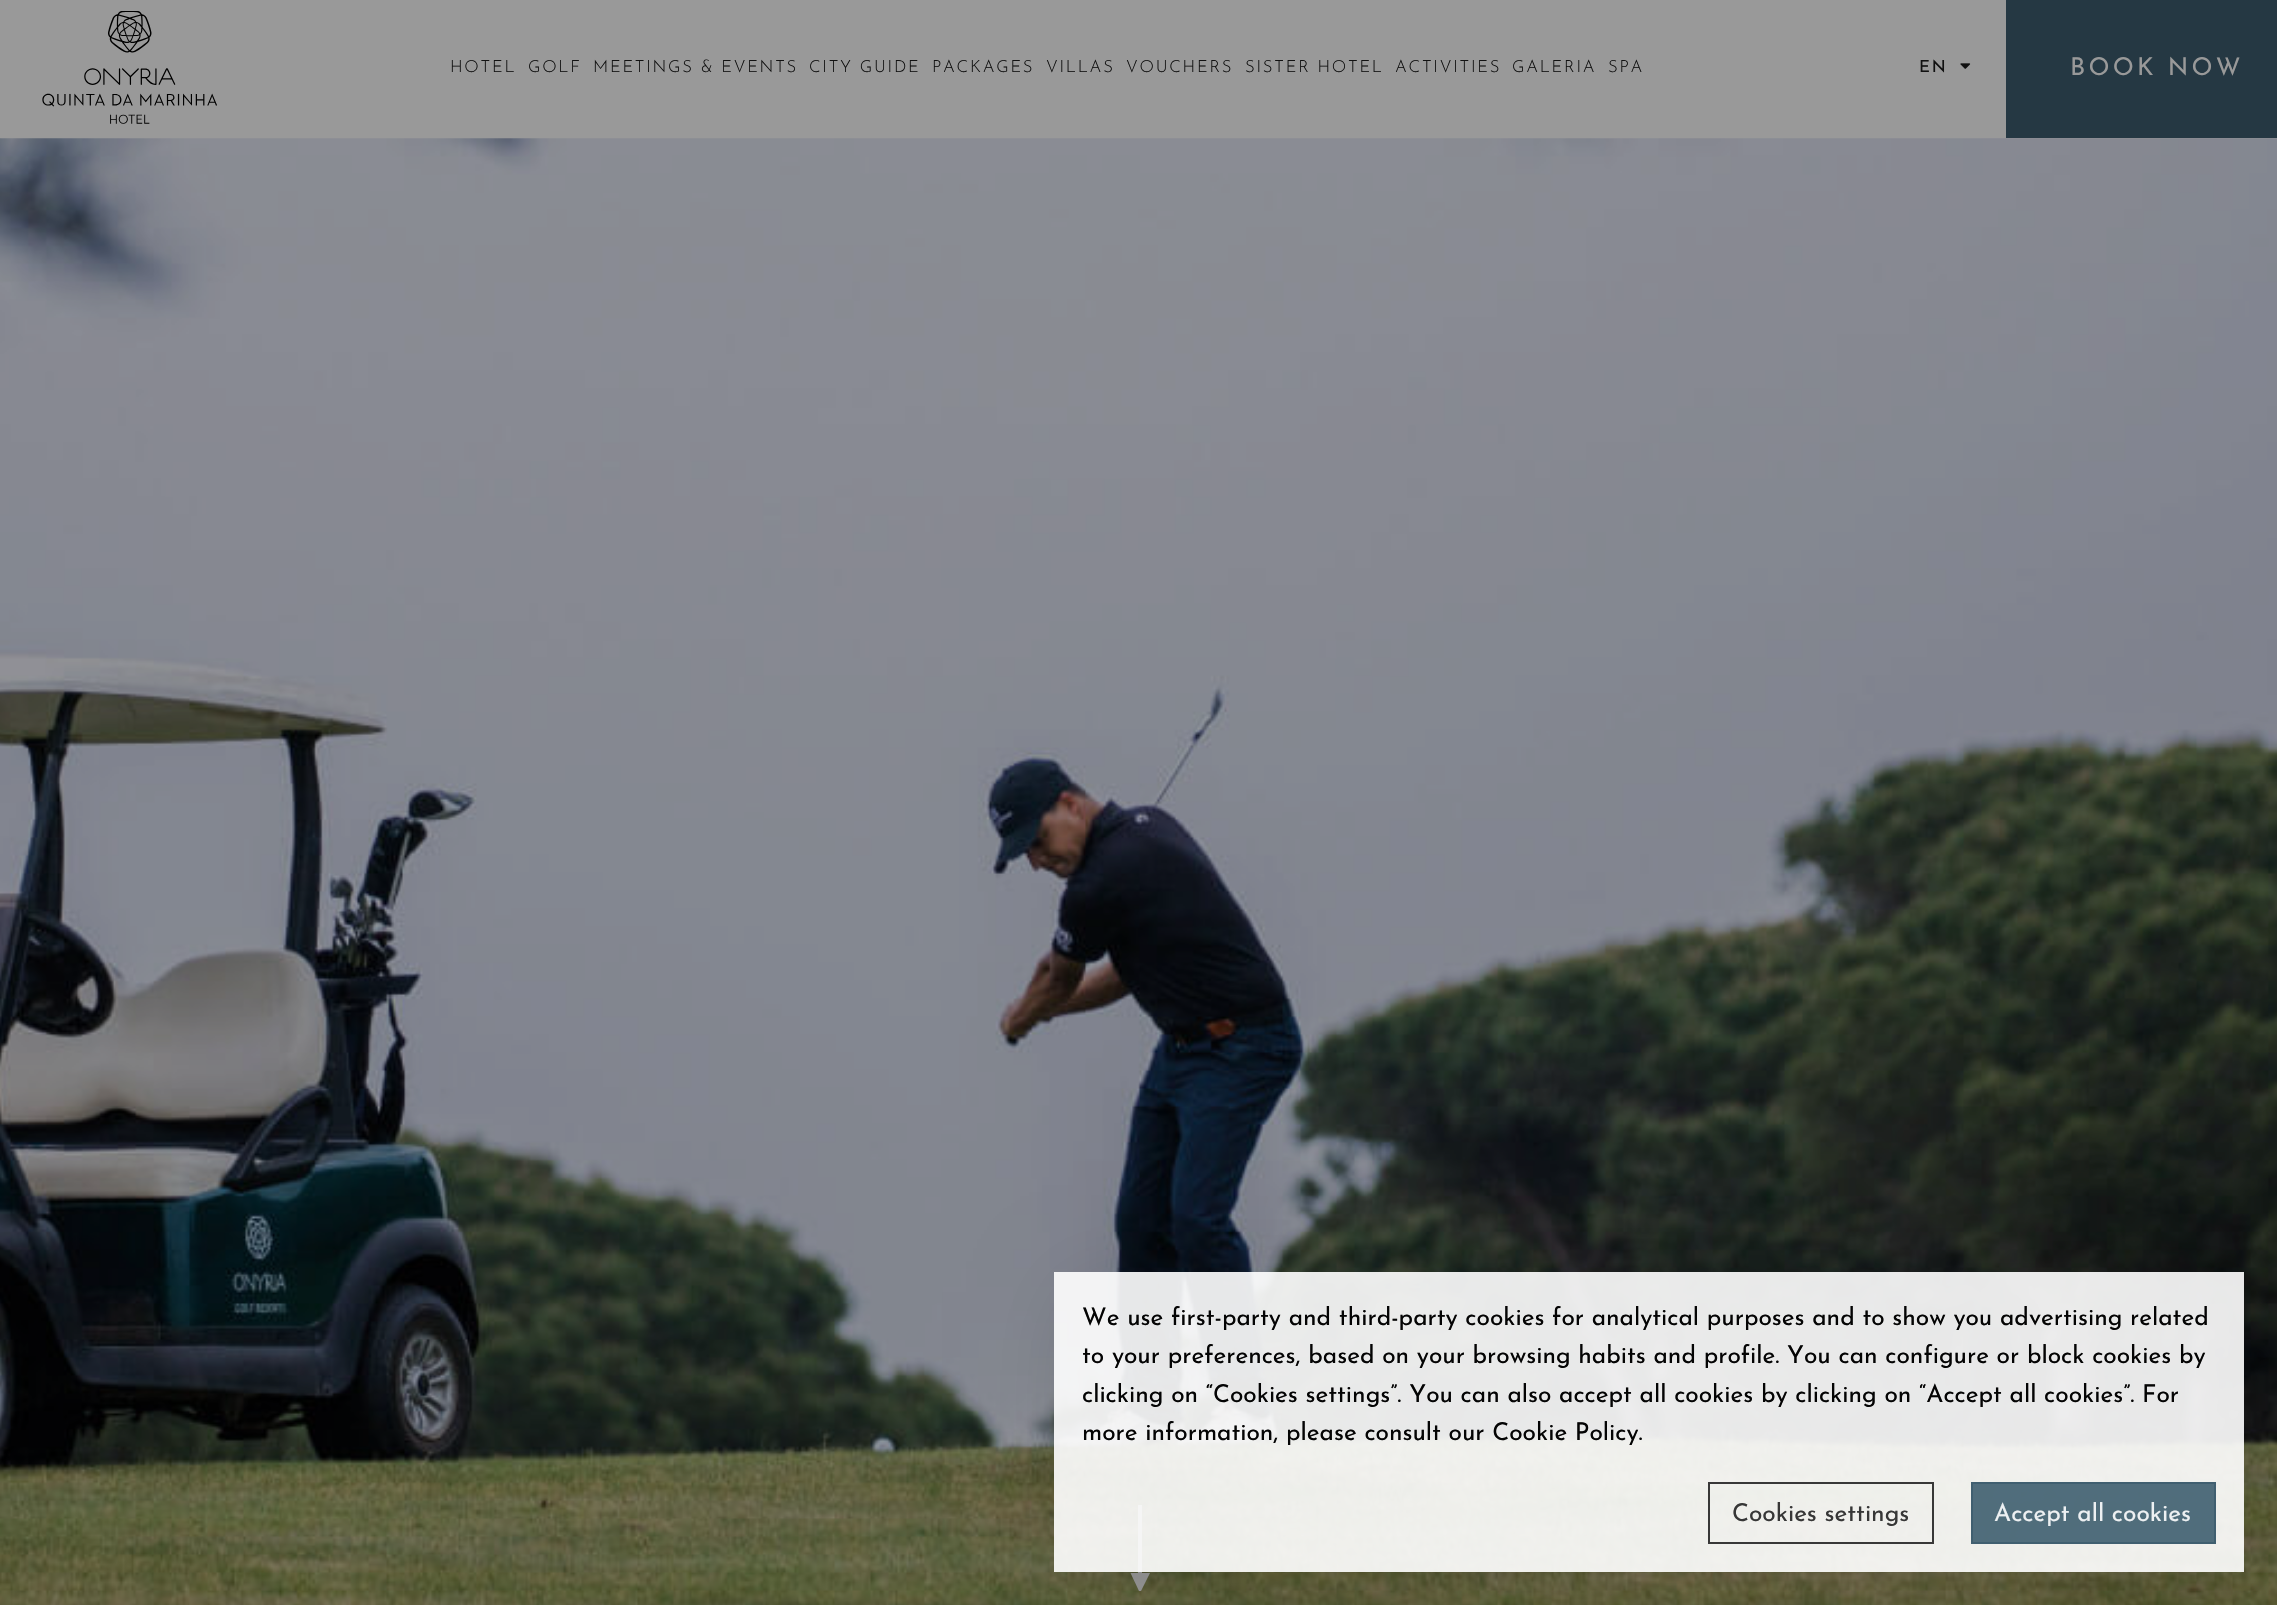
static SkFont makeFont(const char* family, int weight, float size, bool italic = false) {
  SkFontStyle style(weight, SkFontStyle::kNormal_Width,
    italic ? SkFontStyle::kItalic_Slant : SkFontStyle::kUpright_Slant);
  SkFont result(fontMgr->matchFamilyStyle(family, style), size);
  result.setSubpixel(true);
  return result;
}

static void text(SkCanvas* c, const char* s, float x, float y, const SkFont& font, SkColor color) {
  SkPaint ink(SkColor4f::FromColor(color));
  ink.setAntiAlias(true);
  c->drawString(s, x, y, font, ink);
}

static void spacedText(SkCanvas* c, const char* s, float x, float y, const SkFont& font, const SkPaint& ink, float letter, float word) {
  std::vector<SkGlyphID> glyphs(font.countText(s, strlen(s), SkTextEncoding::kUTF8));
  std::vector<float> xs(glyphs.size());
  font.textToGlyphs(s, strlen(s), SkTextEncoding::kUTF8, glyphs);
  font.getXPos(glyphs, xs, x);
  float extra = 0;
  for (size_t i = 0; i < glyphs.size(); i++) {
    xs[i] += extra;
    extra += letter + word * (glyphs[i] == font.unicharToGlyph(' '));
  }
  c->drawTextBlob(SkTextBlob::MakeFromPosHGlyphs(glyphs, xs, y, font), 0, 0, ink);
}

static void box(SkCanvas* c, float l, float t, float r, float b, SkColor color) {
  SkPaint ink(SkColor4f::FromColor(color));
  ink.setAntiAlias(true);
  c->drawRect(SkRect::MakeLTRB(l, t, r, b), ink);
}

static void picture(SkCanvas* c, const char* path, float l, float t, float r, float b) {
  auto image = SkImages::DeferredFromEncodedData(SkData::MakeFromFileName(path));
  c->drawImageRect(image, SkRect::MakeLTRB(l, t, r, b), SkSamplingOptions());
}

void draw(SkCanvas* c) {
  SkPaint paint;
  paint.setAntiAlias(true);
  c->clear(0xff999999);
  picture(c, "img_01.png", 42, 11, 217, 124);
  SkFont face1 = makeFont("Josefin Sans", 300, 16.75f);
  paint.setColor(0xff111111);
  spacedText(c, "HOTEL", 450, 72, face1, paint, 1.75f, 0);
  spacedText(c, "GOLF", 528, 72, face1, paint, 1.75f, 0);
  spacedText(c, "MEETINGS & EVENTS", 593, 72, face1, paint, 1.75f, 0);
  spacedText(c, "CITY GUIDE", 809, 72, face1, paint, 1.75f, 0);
  spacedText(c, "PACKAGES", 932, 72, face1, paint, 1.75f, 0);
  spacedText(c, "VILLAS", 1046, 72, face1, paint, 1.75f, 0);
  spacedText(c, "VOUCHERS", 1126, 72, face1, paint, 1.75f, 0);
  spacedText(c, "SISTER HOTEL", 1245, 72, face1, paint, 1.75f, 0);
  spacedText(c, "ACTIVITIES", 1395, 72, face1, paint, 1.75f, 0);
  spacedText(c, "GALERIA", 1512, 72, face1, paint, 1.75f, 0);
  spacedText(c, "SPA", 1608, 72, face1, paint, 1.75f, 0);
  SkFont face2 = makeFont("Josefin Sans", 400, 16.75f);
  spacedText(c, "EN", 1919, 72, face2, paint, 1.75f, 0);
  picture(c, "img_02.png", 1960, 63, 1971, 69);
  box(c, 2006, 0, 2277, 138, 0xff253843);
  SkFont face3 = makeFont("Josefin Sans", 400, 24.5f);
  paint.setColor(0xff999999);
  spacedText(c, "BOOK NOW", 2070, 75, face3, paint, 3.25f, 0);
  picture(c, "img_03.png", 0, 138, 2277, 1605);
  box(c, 1138, 1505, 1142, 1575, 0xff999999);
  c->drawPath(SkPathBuilder().moveTo(1130.5f, 1573).lineTo(1150, 1573).lineTo(1141, 1591).lineTo(1139, 1591).close().detach(), paint);
  c->save();
  c->clipPath(SkPathBuilder(SkPathFillType::kEvenOdd).moveTo(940, 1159).lineTo(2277, 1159).lineTo(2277, 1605).lineTo(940, 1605).close().moveTo(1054, 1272).lineTo(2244, 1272).lineTo(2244, 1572).lineTo(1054, 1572).close().detach(), true);
  paint.setColor(0x26000000);
  paint.setMaskFilter(SkMaskFilter::MakeBlur(kNormal_SkBlurStyle, 44));
  c->drawRect(SkRect::MakeLTRB(1073, 1292, 2259, 1587), paint);
  paint.setMaskFilter(nullptr);
  c->restore();
  box(c, 1054, 1272, 2244, 1572, 0xe6ffffff);
  text(c, "We use first-party and third-party cookies for analytical purposes and to show you advertising related", 1082, 1325, face3, 0xff040404);
  text(c, "to your preferences, based on your browsing habits and profile. You can configure or block cookies by", 1082, 1363, face3, 0xff040404);
  text(c, "clicking on “Cookies settings”. You can also accept all cookies by clicking on “Accept all cookies”. For", 1082, 1402, face3, 0xff040404);
  text(c, "more information, please consult our Cookie Policy.", 1082, 1440, face3, 0xff040404);
  paint.setStyle(SkPaint::kStroke_Style);
  paint.setStrokeWidth(2);
  paint.setColor(0xe6232323);
  c->drawRect(SkRect::MakeLTRB(1709, 1483, 1933, 1543), paint);
  text(c, "Cookies settings", 1732, 1521, face3, 0xff373737);
  paint.setStyle(SkPaint::kFill_Style);
  paint.setColor(0xe63e5e6f);
  c->drawRect(SkRect::MakeLTRB(1972, 1483, 2215, 1543), paint);
  paint.setStyle(SkPaint::kStroke_Style);
  paint.setColor(0xff405f70);
  c->drawRect(SkRect::MakeLTRB(1972, 1483, 2215, 1543), paint);
  text(c, "Accept all cookies", 1994, 1521, face3, 0xffedf0f2);
}
